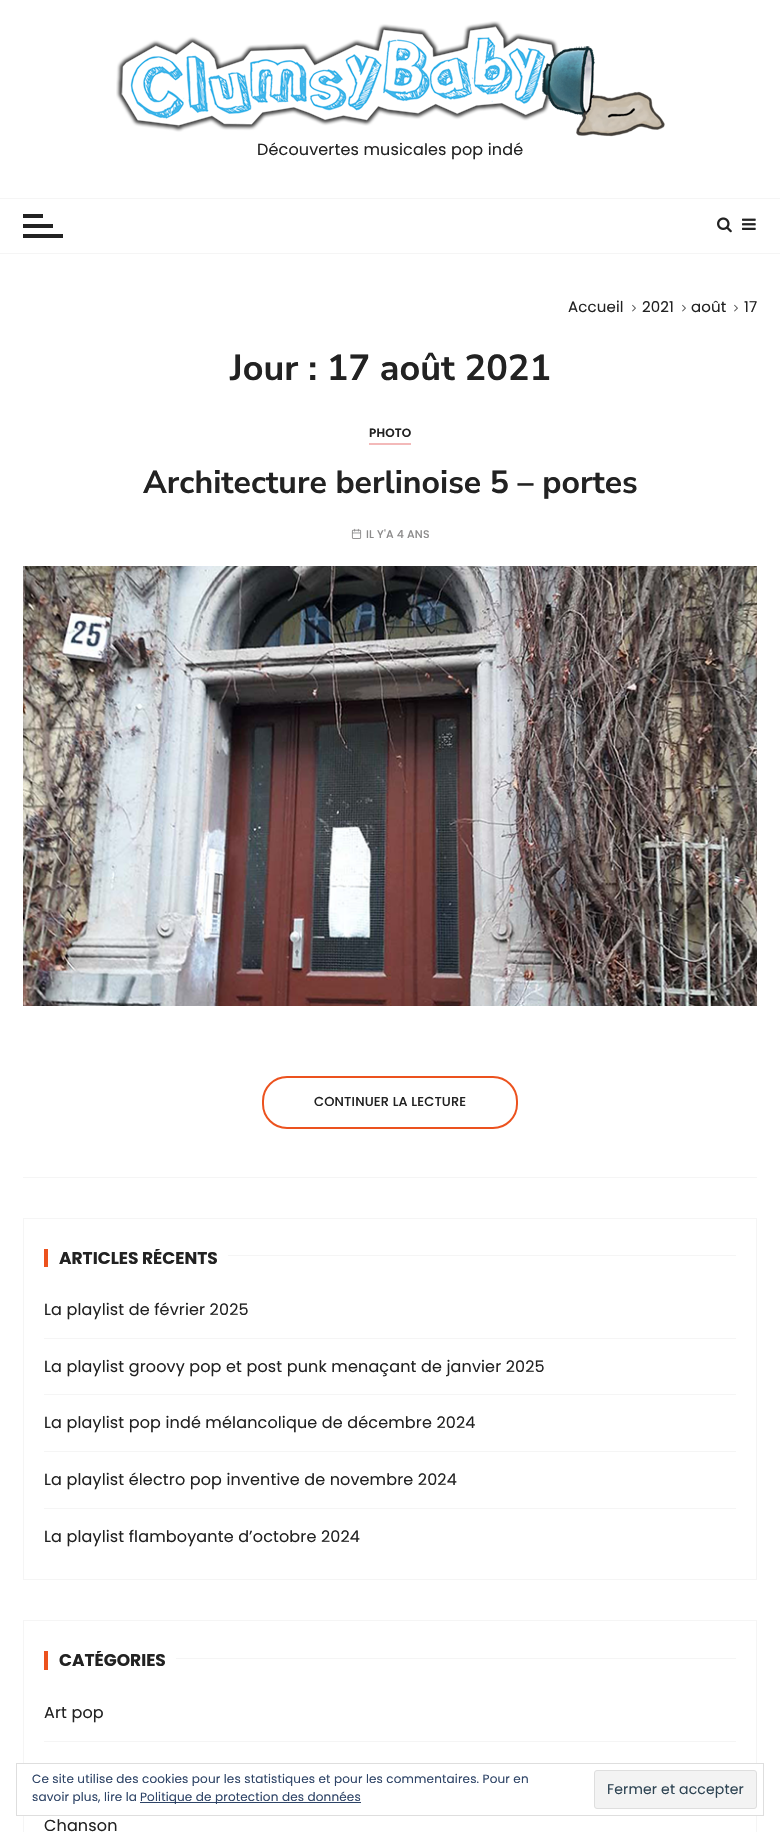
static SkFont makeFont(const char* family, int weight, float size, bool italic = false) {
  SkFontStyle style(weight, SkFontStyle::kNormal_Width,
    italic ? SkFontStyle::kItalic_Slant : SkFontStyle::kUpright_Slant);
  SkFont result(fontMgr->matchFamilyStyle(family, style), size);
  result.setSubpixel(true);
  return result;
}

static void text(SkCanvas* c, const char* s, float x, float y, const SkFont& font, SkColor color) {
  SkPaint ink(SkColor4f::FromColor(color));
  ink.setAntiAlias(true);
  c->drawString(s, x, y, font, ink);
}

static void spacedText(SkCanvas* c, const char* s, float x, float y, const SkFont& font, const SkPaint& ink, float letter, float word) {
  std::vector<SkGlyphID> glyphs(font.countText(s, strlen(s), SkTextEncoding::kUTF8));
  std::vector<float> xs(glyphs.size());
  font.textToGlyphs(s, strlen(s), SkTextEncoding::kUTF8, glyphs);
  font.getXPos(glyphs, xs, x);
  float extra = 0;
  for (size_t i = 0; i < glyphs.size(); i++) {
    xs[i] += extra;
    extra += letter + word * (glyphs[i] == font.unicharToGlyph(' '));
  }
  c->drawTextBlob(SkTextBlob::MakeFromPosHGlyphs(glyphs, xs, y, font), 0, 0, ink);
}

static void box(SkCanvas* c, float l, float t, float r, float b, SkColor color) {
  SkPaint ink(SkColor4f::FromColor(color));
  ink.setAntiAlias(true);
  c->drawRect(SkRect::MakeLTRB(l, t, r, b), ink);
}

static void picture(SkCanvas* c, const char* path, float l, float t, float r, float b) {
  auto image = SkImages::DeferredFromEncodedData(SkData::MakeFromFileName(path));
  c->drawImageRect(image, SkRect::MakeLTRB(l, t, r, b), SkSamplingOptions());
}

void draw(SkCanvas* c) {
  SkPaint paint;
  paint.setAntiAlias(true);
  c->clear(0xffffffff);
  picture(c, "img_01.png", 116, 21, 665, 137);
  SkFont face1 = makeFont("Poppins", 400, 16);
  paint.setColor(0xff222222);
  spacedText(c, "Découvertes musicales pop indé", 257, 155, face1, paint, 0.15f, 0);
  box(c, 0, 198, 780, 199, 0xfff5f5f5);
  box(c, 0, 253, 780, 254, 0xfff5f5f5);
  box(c, 23, 214, 43, 218, 0xff222222);
  box(c, 23, 224, 53, 228, 0xff222222);
  box(c, 23, 234, 63, 238, 0xff222222);
  picture(c, "img_02.png", 717, 217, 732, 233);
  picture(c, "img_03.png", 742, 218, 756, 230);
  SkFont face2 = makeFont("Poppins", 400, 15);
  spacedText(c, "Accueil", 568, 312, face2, paint, 0.15f, 0);
  picture(c, "img_04.png", 632, 304, 636, 312);
  spacedText(c, "2021", 642, 312, face2, paint, 0.15f, 0);
  picture(c, "img_04.png", 682, 304, 686, 312);
  spacedText(c, "août", 691, 312, face2, paint, 0.15f, 0);
  picture(c, "img_04.png", 734, 304, 738, 312);
  spacedText(c, "17", 744, 312, face2, paint, 0.15f, 0);
  SkFont face3 = makeFont("Nunito Sans", 700, 36);
  text(c, "Jour : 17 août 2021", 230, 380, face3, 0xff222222);
  box(c, 23, 1177, 757, 1178, 0xfff5f5f5);
  SkFont face4 = makeFont("Poppins", 600, 12);
  spacedText(c, "PHOTO", 369, 437, face4, paint, 0.15f, 0);
  box(c, 369, 443, 411, 445, 0xfff3b9b9);
  SkFont face5 = makeFont("Nunito Sans", 700, 32);
  text(c, "Architecture berlinoise 5 – portes", 143, 493, face5, 0xff222222);
  picture(c, "img_05.png", 351, 528, 362, 539);
  SkFont face6 = makeFont("Poppins", 500, 11);
  paint.setColor(0xff8c8b8b);
  spacedText(c, "IL Y'A 4 ANS", 366, 538, face6, paint, 0.15f, 0);
  picture(c, "img_06.png", 23, 566, 757, 1006);
  paint.setStyle(SkPaint::kStroke_Style);
  paint.setStrokeWidth(2);
  paint.setColor(0xffec521e);
  c->drawRoundRect(SkRect::MakeLTRB(263, 1077, 517, 1128), 24, 24, paint);
  SkFont face7 = makeFont("Poppins", 500, 13);
  paint.setStyle(SkPaint::kFill_Style);
  paint.setColor(0xff222222);
  spacedText(c, "CONTINUER LA LECTURE", 314, 1106, face7, paint, 0.15f, 0);
  paint.setStyle(SkPaint::kStroke_Style);
  paint.setStrokeWidth(1);
  paint.setColor(0xfff5f5f5);
  c->drawRect(SkRect::MakeLTRB(23.5f, 1218.5f, 756.5f, 1579.5f), paint);
  box(c, 44, 1249, 48, 1267, 0xffec521e);
  c->save();
  c->clipRect(SkRect::MakeLTRB(44, 1249, 736, 1267));
  SkFont face8 = makeFont("Poppins", 700, 17);
  text(c, "ARTICLES RÉCENTS", 59, 1264, face8, 0xff222222);
  c->restore();
  box(c, 228, 1255, 736, 1256, 0xfff5f5f5);
  box(c, 44, 1338, 736, 1339, 0xfff5f5f5);
  paint.setStyle(SkPaint::kFill_Style);
  paint.setColor(0xff222222);
  spacedText(c, "La playlist de février 2025", 44, 1315, face1, paint, 0.15f, 0);
  box(c, 44, 1394, 736, 1395, 0xfff5f5f5);
  spacedText(c, "La playlist groovy pop et post punk menaçant de janvier 2025", 44, 1372, face1, paint, 0.15f, 0);
  box(c, 44, 1451, 736, 1452, 0xfff5f5f5);
  spacedText(c, "La playlist pop indé mélancolique de décembre 2024", 44, 1428, face1, paint, 0.15f, 0);
  box(c, 44, 1508, 736, 1509, 0xfff5f5f5);
  spacedText(c, "La playlist électro pop inventive de novembre 2024", 44, 1485, face1, paint, 0.15f, 0);
  spacedText(c, "La playlist flamboyante d’octobre 2024", 44, 1542, face1, paint, 0.15f, 0);
  paint.setStyle(SkPaint::kStroke_Style);
  paint.setColor(0xfff5f5f5);
  c->drawRect(SkRect::MakeLTRB(23.5f, 1620.5f, 756.5f, 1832.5f), paint);
  box(c, 44, 1651, 48, 1670, 0xffec521e);
  c->save();
  c->clipRect(SkRect::MakeLTRB(44, 1651, 736, 1670));
  text(c, "CATÉGORIES", 59, 1666, face8, 0xff222222);
  c->restore();
  box(c, 176, 1658, 736, 1659, 0xfff5f5f5);
  box(c, 44, 1741, 736, 1742, 0xfff5f5f5);
  paint.setStyle(SkPaint::kFill_Style);
  paint.setColor(0xff222222);
  spacedText(c, "Art pop", 44, 1718, face1, paint, 0.15f, 0);
  spacedText(c, "Chanson", 44, 1831, face1, paint, 0.15f, 0);
  box(c, 23, 1764, 757, 1815, 0xffffffff);
  paint.setStyle(SkPaint::kStroke_Style);
  paint.setColor(0xffdedede);
  c->drawRect(SkRect::MakeLTRB(16.5f, 1763.5f, 763.5f, 1815.5f), paint);
  SkFont face9 = makeFont("Poppins", 400, 12);
  paint.setStyle(SkPaint::kFill_Style);
  paint.setColor(0xff2e4467);
  spacedText(c, "Ce site utilise des cookies pour les statistiques et pour les commentaires. Pour en", 32, 1783, face9, paint, 0.15f, 0);
  spacedText(c, "savoir plus, lire la", 32, 1801, face9, paint, 0.15f, 0);
  box(c, 140, 1802, 361, 1803, 0xff2e4467);
  spacedText(c, "Politique de protection des données", 140, 1801, face9, paint, 0.15f, 0);
  paint.setColor(0xfff3f3f3);
  c->drawRoundRect(SkRect::MakeLTRB(594.5f, 1770.5f, 756.5f, 1808.5f), 2.5f, 2.5f, paint);
  paint.setStyle(SkPaint::kStroke_Style);
  paint.setColor(0xffdedede);
  c->drawRoundRect(SkRect::MakeLTRB(594.5f, 1770.5f, 756.5f, 1808.5f), 2.5f, 2.5f, paint);
  SkFont face10 = makeFont("Poppins", 400, 14);
  paint.setStyle(SkPaint::kFill_Style);
  paint.setColor(0xff2e4453);
  spacedText(c, "Fermer et accepter", 607, 1794, face10, paint, 0.15f, 0);
}
